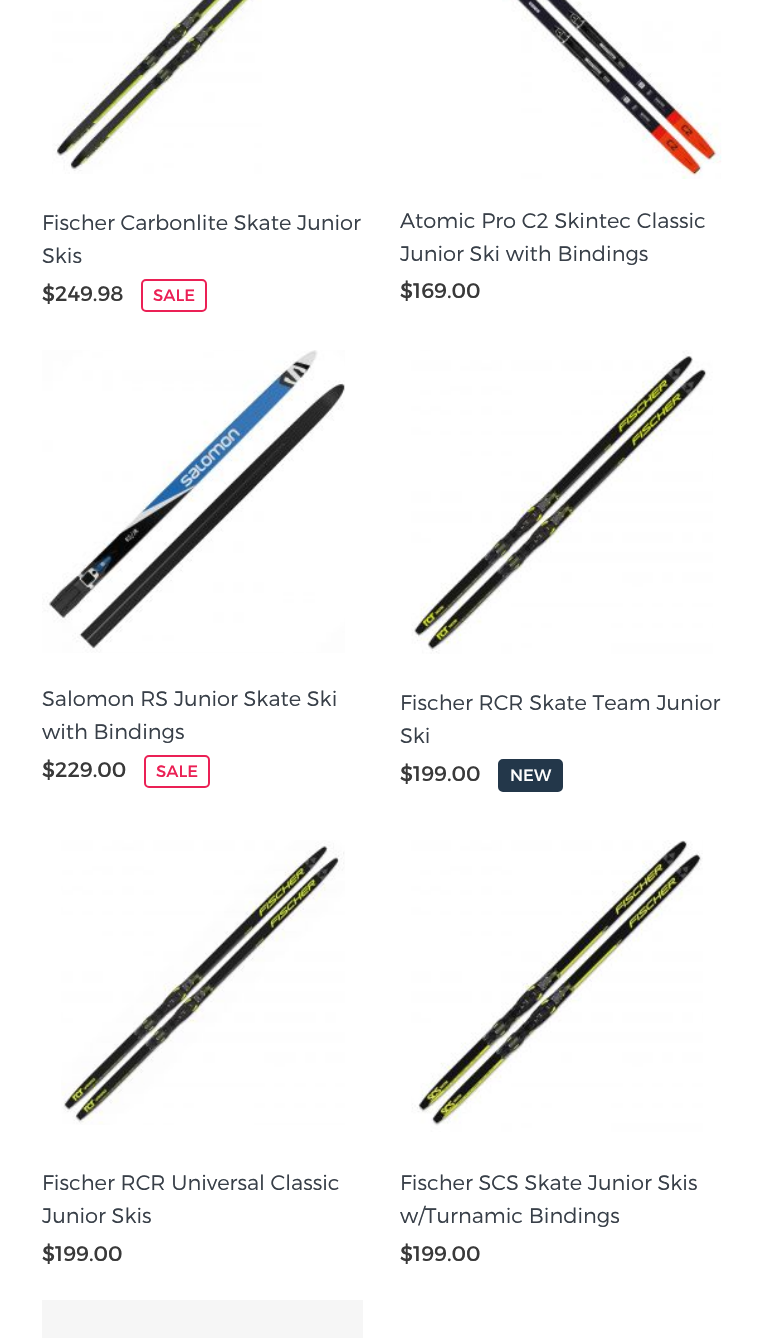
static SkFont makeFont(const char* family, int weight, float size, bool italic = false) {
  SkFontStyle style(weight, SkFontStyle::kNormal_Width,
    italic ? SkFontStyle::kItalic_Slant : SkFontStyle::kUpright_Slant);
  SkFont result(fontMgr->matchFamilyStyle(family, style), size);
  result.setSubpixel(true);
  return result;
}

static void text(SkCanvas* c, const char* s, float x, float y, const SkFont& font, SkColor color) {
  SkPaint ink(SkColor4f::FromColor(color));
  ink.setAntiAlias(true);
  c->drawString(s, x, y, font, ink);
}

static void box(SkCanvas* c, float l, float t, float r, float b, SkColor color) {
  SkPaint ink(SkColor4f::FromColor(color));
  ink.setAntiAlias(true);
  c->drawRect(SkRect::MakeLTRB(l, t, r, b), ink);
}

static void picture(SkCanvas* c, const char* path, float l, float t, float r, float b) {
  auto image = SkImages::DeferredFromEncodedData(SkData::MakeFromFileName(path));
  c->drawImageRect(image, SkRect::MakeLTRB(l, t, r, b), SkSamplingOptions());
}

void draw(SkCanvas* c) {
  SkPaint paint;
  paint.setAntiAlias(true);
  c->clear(0xffffffff);
  picture(c, "img_01.png", 52, 0, 262, 174);
  SkFont face1 = makeFont("Montserrat", 300, 21);
  text(c, "Fischer Carbonlite Skate Junior", 42, 230, face1, 0xff383f48);
  text(c, "Skis", 42, 263, face1, 0xff383f48);
  SkFont face2 = makeFont("Montserrat", 400, 21);
  text(c, "$249.98", 42, 301, face2, 0xff393939);
  paint.setStyle(SkPaint::kStroke_Style);
  paint.setStrokeWidth(2);
  paint.setColor(0xffeb2055);
  c->drawRoundRect(SkRect::MakeLTRB(142, 280, 206, 311), 4, 4, paint);
  SkFont face3 = makeFont("Montserrat", 400, 16.5f);
  text(c, "SALE", 153, 301, face3, 0xffeb2055);
  picture(c, "img_02.png", 502, 0, 722, 179);
  text(c, "Atomic Pro C2 Skintec Classic", 400, 228, face1, 0xff383f48);
  text(c, "Junior Ski with Bindings", 400, 261, face1, 0xff383f48);
  text(c, "$169.00", 400, 298, face2, 0xff393939);
  picture(c, "img_03.png", 42, 350, 345, 653);
  text(c, "Salomon RS Junior Skate Ski", 42, 706, face1, 0xff383f48);
  text(c, "with Bindings", 42, 739, face1, 0xff383f48);
  text(c, "$229.00", 42, 777, face2, 0xff393939);
  c->drawRoundRect(SkRect::MakeLTRB(145, 756, 209, 787), 4, 4, paint);
  text(c, "SALE", 156, 777, face3, 0xffeb2055);
  picture(c, "img_04.png", 411, 350, 713, 654);
  text(c, "Fischer RCR Skate Team Junior", 400, 710, face1, 0xff383f48);
  text(c, "Ski", 400, 743, face1, 0xff383f48);
  text(c, "$199.00", 400, 781, face2, 0xff393939);
  paint.setStyle(SkPaint::kFill_Style);
  paint.setColor(0xff23374a);
  c->drawRoundRect(SkRect::MakeLTRB(499, 760, 562, 791), 4, 4, paint);
  paint.setStyle(SkPaint::kStroke_Style);
  c->drawRoundRect(SkRect::MakeLTRB(499, 760, 562, 791), 4, 4, paint);
  text(c, "NEW", 510, 781, face3, 0xffffffff);
  picture(c, "img_05.png", 61, 840, 345, 1125);
  text(c, "Fischer RCR Universal Classic", 42, 1190, face1, 0xff383f48);
  text(c, "Junior Skis", 42, 1223, face1, 0xff383f48);
  text(c, "$199.00", 42, 1261, face2, 0xff393939);
  picture(c, "img_06.png", 411, 840, 703, 1132);
  text(c, "Fischer SCS Skate Junior Skis", 400, 1190, face1, 0xff383f48);
  text(c, "w/Turnamic Bindings", 400, 1223, face1, 0xff383f48);
  text(c, "$199.00", 400, 1261, face2, 0xff393939);
  box(c, 42, 1300, 363, 1338, 0xfff6f6f6);
}
